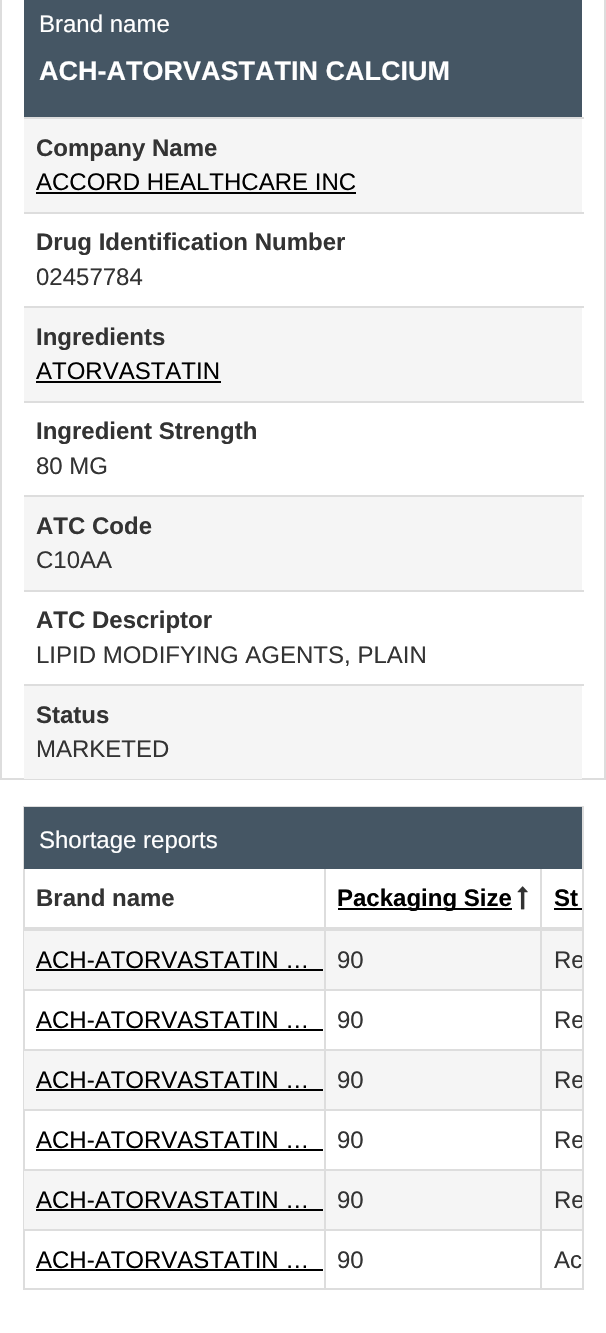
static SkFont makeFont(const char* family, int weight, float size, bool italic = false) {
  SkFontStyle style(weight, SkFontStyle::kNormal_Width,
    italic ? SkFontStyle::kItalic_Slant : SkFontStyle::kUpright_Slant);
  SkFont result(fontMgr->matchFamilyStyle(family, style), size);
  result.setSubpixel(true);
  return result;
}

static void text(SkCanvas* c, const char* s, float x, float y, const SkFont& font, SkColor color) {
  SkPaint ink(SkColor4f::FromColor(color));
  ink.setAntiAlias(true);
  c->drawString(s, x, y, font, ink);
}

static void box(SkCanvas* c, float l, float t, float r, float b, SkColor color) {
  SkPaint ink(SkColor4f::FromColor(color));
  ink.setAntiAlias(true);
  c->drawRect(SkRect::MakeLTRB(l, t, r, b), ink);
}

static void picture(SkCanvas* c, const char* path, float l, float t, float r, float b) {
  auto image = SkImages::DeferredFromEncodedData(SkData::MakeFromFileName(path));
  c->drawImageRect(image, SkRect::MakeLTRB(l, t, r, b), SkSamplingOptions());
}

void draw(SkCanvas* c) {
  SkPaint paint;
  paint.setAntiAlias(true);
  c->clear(0xffffffff);
  paint.setStyle(SkPaint::kStroke_Style);
  paint.setStrokeWidth(2);
  paint.setColor(0xffdddddd);
  c->drawRect(SkRect::MakeLTRB(1, -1, 605, 779), paint);
  box(c, 24, 0, 582, 117, 0xff455664);
  SkFont face1 = makeFont("Liberation Sans", 400, 24);
  text(c, "Brand name", 39, 32, face1, 0xffffffff);
  SkFont face2 = makeFont("Liberation Sans", 700, 27);
  text(c, "ACH-ATORVASTATIN CALCIUM", 39, 80, face2, 0xffffffff);
  box(c, 24, 119, 582, 212, 0xfff5f5f5);
  box(c, 24, 117, 584, 119, 0xffdddddd);
  SkFont face3 = makeFont("Liberation Sans", 700, 24);
  text(c, "Company Name", 36, 156, face3, 0xff333333);
  text(c, "ACCORD HEALTHCARE INC", 36, 190, face1, 0xff000000);
  box(c, 36, 192, 356, 194, 0xff000000);
  box(c, 24, 212, 584, 214, 0xffdddddd);
  text(c, "Drug Identification Number", 36, 250, face3, 0xff333333);
  text(c, "02457784", 36, 285, face1, 0xff333333);
  box(c, 24, 308, 582, 401, 0xfff5f5f5);
  box(c, 24, 306, 584, 308, 0xffdddddd);
  text(c, "Ingredients", 36, 345, face3, 0xff333333);
  text(c, "ATORVASTATIN", 36, 379, face1, 0xff000000);
  box(c, 36, 381, 221, 383, 0xff000000);
  box(c, 24, 401, 584, 403, 0xffdddddd);
  text(c, "Ingredient Strength", 36, 439, face3, 0xff333333);
  text(c, "80 MG", 36, 474, face1, 0xff333333);
  box(c, 24, 497, 582, 590, 0xfff5f5f5);
  box(c, 24, 495, 584, 497, 0xffdddddd);
  text(c, "ATC Code", 36, 534, face3, 0xff333333);
  text(c, "C10AA", 36, 568, face1, 0xff333333);
  box(c, 24, 590, 584, 592, 0xffdddddd);
  text(c, "ATC Descriptor", 36, 628, face3, 0xff333333);
  text(c, "LIPID MODIFYING AGENTS, PLAIN", 36, 663, face1, 0xff333333);
  box(c, 24, 686, 582, 779, 0xfff5f5f5);
  box(c, 24, 684, 584, 686, 0xffdddddd);
  text(c, "Status", 36, 723, face3, 0xff333333);
  text(c, "MARKETED", 36, 757, face1, 0xff333333);
  c->drawRect(SkRect::MakeLTRB(24, 807, 583, 1289), paint);
  box(c, 24, 807, 582, 869, 0xff455664);
  text(c, "Shortage reports", 39, 848, face1, 0xffffffff);
  text(c, "Brand name", 36, 906, face3, 0xff333333);
  box(c, 338, 908, 512, 910, 0xff000000);
  text(c, "Packaging Size", 337, 906, face3, 0xff000000);
  picture(c, "img_01.png", 517, 886, 528, 910);
  box(c, 24, 931, 582, 989, 0xfff5f5f5);
  box(c, 540, 930, 582, 931, 0xffdddddd);
  box(c, 540, 989, 582, 991, 0xffdddddd);
  box(c, 540, 1049, 582, 1051, 0xffdddddd);
  box(c, 24, 1051, 582, 1109, 0xfff5f5f5);
  box(c, 540, 1109, 582, 1111, 0xffdddddd);
  box(c, 540, 1169, 582, 1171, 0xffdddddd);
  box(c, 24, 1171, 582, 1229, 0xfff5f5f5);
  box(c, 540, 1229, 582, 1231, 0xffdddddd);
  box(c, 540, 1229, 542, 1289, 0xffdddddd);
  box(c, 324, 1229, 542, 1231, 0xffdddddd);
  box(c, 540, 1169, 542, 1230, 0xffdddddd);
  box(c, 324, 1169, 542, 1171, 0xffdddddd);
  box(c, 540, 1109, 542, 1170, 0xffdddddd);
  box(c, 324, 1109, 542, 1111, 0xffdddddd);
  box(c, 540, 1049, 542, 1110, 0xffdddddd);
  box(c, 324, 1049, 542, 1051, 0xffdddddd);
  box(c, 540, 989, 542, 1050, 0xffdddddd);
  box(c, 324, 989, 542, 991, 0xffdddddd);
  box(c, 540, 869, 542, 990, 0xffdddddd);
  box(c, 324, 930, 542, 931, 0xffdddddd);
  box(c, 324, 1229, 326, 1289, 0xffdddddd);
  box(c, 24, 1229, 326, 1231, 0xffdddddd);
  box(c, 324, 1169, 326, 1230, 0xffdddddd);
  box(c, 24, 1169, 326, 1171, 0xffdddddd);
  box(c, 324, 1109, 326, 1170, 0xffdddddd);
  box(c, 24, 1109, 326, 1111, 0xffdddddd);
  box(c, 324, 1049, 326, 1110, 0xffdddddd);
  box(c, 24, 1049, 326, 1051, 0xffdddddd);
  box(c, 324, 989, 326, 1050, 0xffdddddd);
  box(c, 24, 989, 326, 991, 0xffdddddd);
  box(c, 324, 869, 326, 990, 0xffdddddd);
  box(c, 24, 927, 582, 930, 0xffdddddd);
  text(c, "St", 554, 906, face3, 0xff000000);
  box(c, 554, 908, 582, 910, 0xff000000);
  box(c, 24, 930, 326, 931, 0xffdddddd);
  text(c, "ACH-ATORVASTATIN …", 36, 968, face1, 0xff000000);
  box(c, 36, 969, 323, 971, 0xff000000);
  text(c, "90", 337, 968, face1, 0xff333333);
  c->save();
  c->clipRect(SkRect::MakeLTRB(543, 930, 582, 989));
  text(c, "Re", 554, 968, face1, 0xff333333);
  c->restore();
  text(c, "ACH-ATORVASTATIN …", 36, 1028, face1, 0xff000000);
  box(c, 36, 1029, 323, 1031, 0xff000000);
  text(c, "90", 337, 1028, face1, 0xff333333);
  c->save();
  c->clipRect(SkRect::MakeLTRB(543, 992, 582, 1049));
  text(c, "Re", 554, 1028, face1, 0xff333333);
  c->restore();
  text(c, "ACH-ATORVASTATIN …", 36, 1088, face1, 0xff000000);
  box(c, 36, 1089, 323, 1091, 0xff000000);
  text(c, "90", 337, 1088, face1, 0xff333333);
  c->save();
  c->clipRect(SkRect::MakeLTRB(543, 1052, 582, 1109));
  text(c, "Re", 554, 1088, face1, 0xff333333);
  c->restore();
  text(c, "ACH-ATORVASTATIN …", 36, 1148, face1, 0xff000000);
  box(c, 36, 1149, 323, 1151, 0xff000000);
  text(c, "90", 337, 1148, face1, 0xff333333);
  c->save();
  c->clipRect(SkRect::MakeLTRB(543, 1112, 582, 1169));
  text(c, "Re", 554, 1148, face1, 0xff333333);
  c->restore();
  text(c, "ACH-ATORVASTATIN …", 36, 1208, face1, 0xff000000);
  box(c, 36, 1209, 323, 1211, 0xff000000);
  text(c, "90", 337, 1208, face1, 0xff333333);
  c->save();
  c->clipRect(SkRect::MakeLTRB(543, 1172, 582, 1229));
  text(c, "Re", 554, 1208, face1, 0xff333333);
  c->restore();
  text(c, "ACH-ATORVASTATIN …", 36, 1268, face1, 0xff000000);
  box(c, 36, 1269, 323, 1271, 0xff000000);
  text(c, "90", 337, 1268, face1, 0xff333333);
  text(c, "Ac", 554, 1268, face1, 0xff333333);
}
